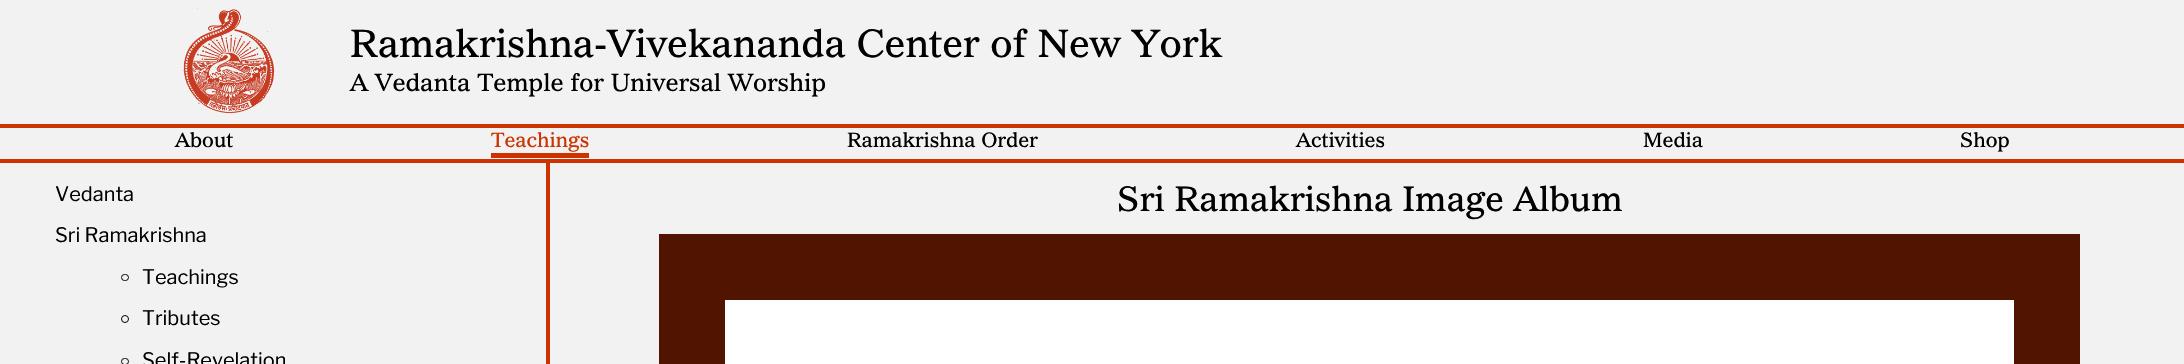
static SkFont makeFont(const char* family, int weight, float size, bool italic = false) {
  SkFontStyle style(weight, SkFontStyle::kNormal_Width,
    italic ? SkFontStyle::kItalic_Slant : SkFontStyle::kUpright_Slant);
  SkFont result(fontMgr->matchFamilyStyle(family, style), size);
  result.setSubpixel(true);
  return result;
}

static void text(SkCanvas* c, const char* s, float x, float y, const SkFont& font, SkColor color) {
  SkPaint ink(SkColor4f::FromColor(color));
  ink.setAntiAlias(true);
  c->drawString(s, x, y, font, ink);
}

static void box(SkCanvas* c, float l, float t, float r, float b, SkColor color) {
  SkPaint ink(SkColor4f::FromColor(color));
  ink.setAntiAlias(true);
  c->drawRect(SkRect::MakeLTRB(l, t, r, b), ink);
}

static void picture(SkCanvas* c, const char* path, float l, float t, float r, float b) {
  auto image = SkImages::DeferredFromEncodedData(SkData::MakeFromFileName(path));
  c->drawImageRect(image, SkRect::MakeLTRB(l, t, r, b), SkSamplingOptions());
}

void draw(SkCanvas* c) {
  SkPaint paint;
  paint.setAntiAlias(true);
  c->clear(0xfff2f2f2);
  picture(c, "img_01.png", 182, 7, 275, 114);
  SkFont face1 = makeFont("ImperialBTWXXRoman", 400, 38);
  text(c, "Ramakrishna-Vivekananda Center of New York", 350, 57, face1, 0xff000000);
  SkFont face2 = makeFont("ImperialBTWXXRoman", 400, 24);
  text(c, "A Vedanta Temple for Universal Worship", 350, 91, face2, 0xff000000);
  box(c, 0, 124, 2184, 128, 0xffcc3300);
  SkFont face3 = makeFont("ImperialBTWXXRoman", 400, 20);
  text(c, "About", 175, 147, face3, 0xff000000);
  text(c, "Teachings", 491, 147, face3, 0xffcc3300);
  box(c, 491, 153, 589, 158, 0xffcc3300);
  text(c, "Ramakrishna Order", 847, 147, face3, 0xff000000);
  text(c, "Activities", 1296, 147, face3, 0xff000000);
  text(c, "Media", 1643, 147, face3, 0xff000000);
  text(c, "Shop", 1960, 147, face3, 0xff000000);
  box(c, 0, 159, 2184, 163, 0xffcc3300);
  box(c, 546, 163, 550, 364, 0xffcc3300);
  SkFont face4 = makeFont("Libre Franklin", 100, 20);
  text(c, "Vedanta", 55, 201, face4, 0xff000000);
  text(c, "Sri Ramakrishna", 55, 242, face4, 0xff000000);
  paint.setStyle(SkPaint::kStroke_Style);
  paint.setStrokeWidth(1);
  paint.setColor(0xff000000);
  c->drawRoundRect(SkRect::MakeLTRB(121.5f, 274.5f, 128.5f, 280.5f), 3, 3, paint);
  text(c, "Teachings", 142, 284, face4, 0xff000000);
  c->drawCircle(125, 319, 3.5f, paint);
  text(c, "Tributes", 142, 325, face4, 0xff000000);
  c->drawRoundRect(SkRect::MakeLTRB(121.5f, 358.5f, 128.5f, 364.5f), 3, 3, paint);
  text(c, "Self-Revelation", 142, 367, face4, 0xff000000);
  SkFont face5 = makeFont("ImperialBTWXXRoman", 400, 34);
  text(c, "Sri Ramakrishna Image Album", 1117, 211, face5, 0xff000000);
  box(c, 659, 234, 2080, 364, 0xff511400);
  box(c, 725, 300, 2014, 364, 0xffffffff);
}
